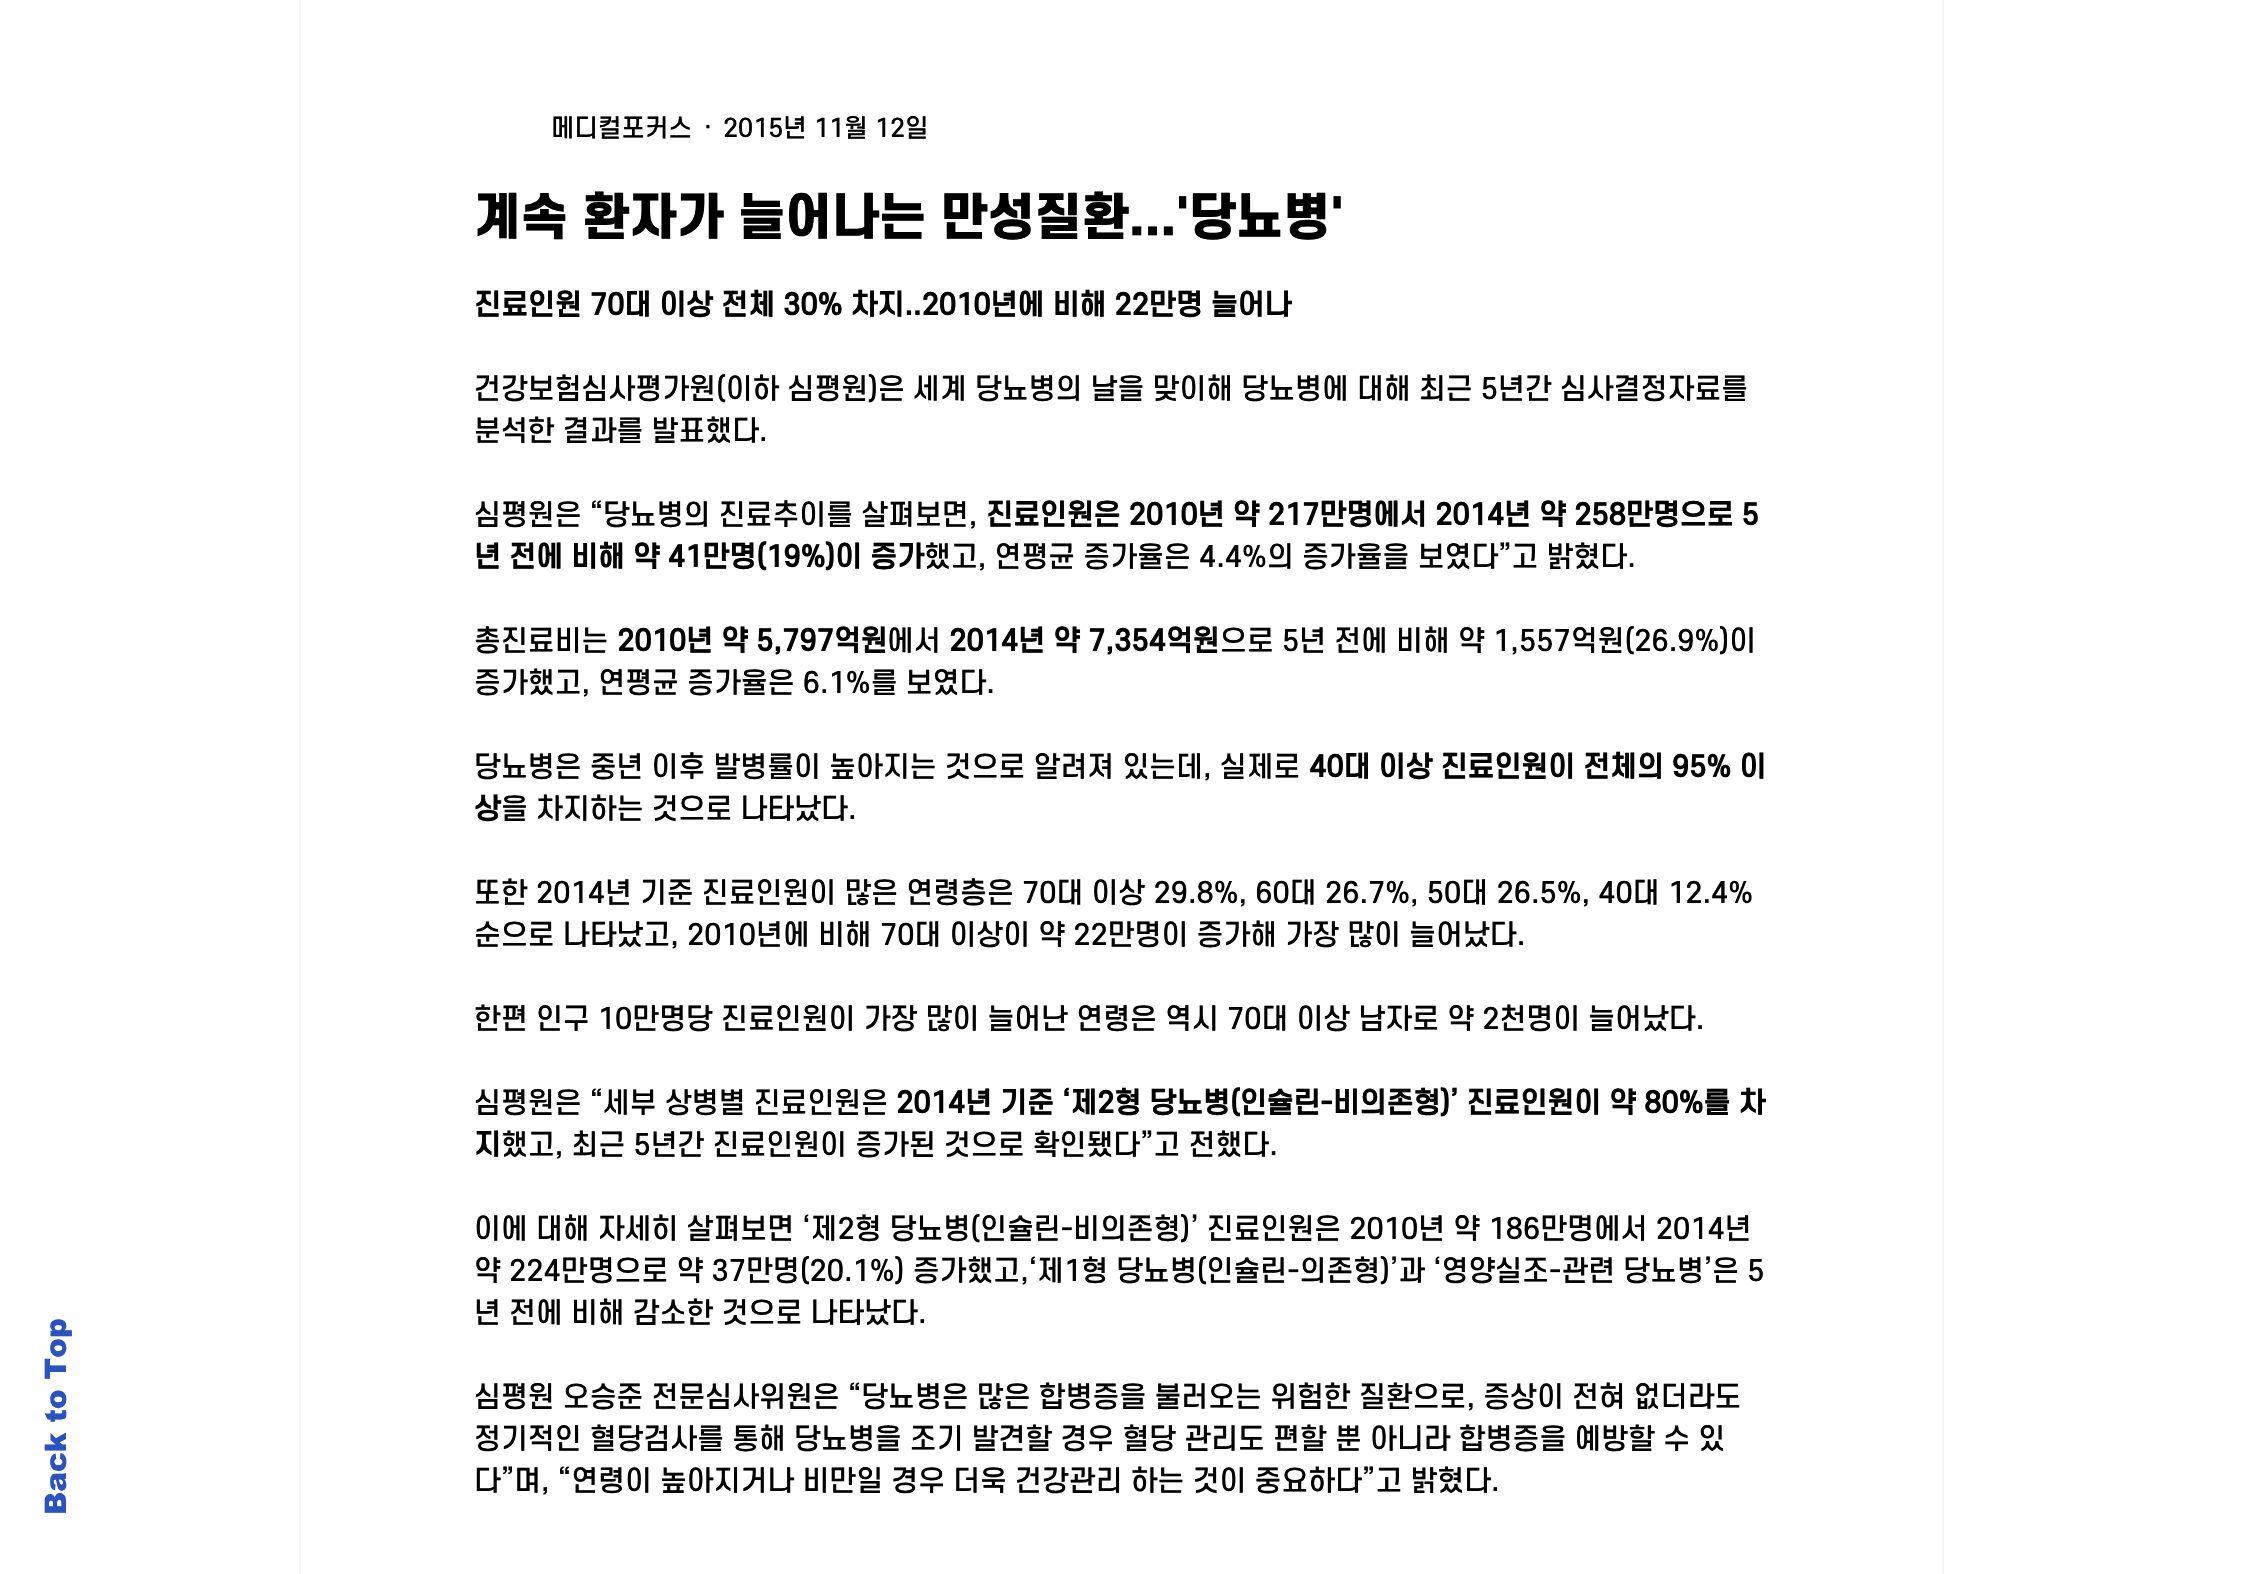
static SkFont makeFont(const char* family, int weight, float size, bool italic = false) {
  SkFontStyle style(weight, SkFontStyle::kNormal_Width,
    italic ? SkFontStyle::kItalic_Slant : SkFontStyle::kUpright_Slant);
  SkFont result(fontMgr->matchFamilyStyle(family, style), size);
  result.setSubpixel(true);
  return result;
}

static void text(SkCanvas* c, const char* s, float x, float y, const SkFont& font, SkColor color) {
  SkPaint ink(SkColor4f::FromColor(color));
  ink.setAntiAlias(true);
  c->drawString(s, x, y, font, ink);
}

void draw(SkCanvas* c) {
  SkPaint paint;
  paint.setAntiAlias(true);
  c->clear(0xffffffff);
  SkFont face1 = makeFont("arial", 900, 29.75f);
  c->save();
  c->rotate(-90, 66, 1515);
  text(c, "Back to Top", 66, 1515, face1, 0xff2a53c1);
  c->restore();
  paint.setStyle(SkPaint::kStroke_Style);
  paint.setStrokeWidth(2);
  paint.setColor(0xfff5f5f5);
  c->drawRect(SkRect::MakeLTRB(300, -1, 1943, 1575), paint);
  SkFont face2 = makeFont("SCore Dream", 500, 24.5f);
  text(c, "메디컬포커스", 551, 137, face2, 0xff000000);
  text(c, "·", 703, 137, face2, 0xff000000);
  text(c, "2015년 11월 12일", 723, 137, face2, 0xff000000);
  SkFont face3 = makeFont("SCore Dream", 900, 49);
  text(c, "계속 환자가 늘어나는 만성질환...'당뇨병'", 474, 235, face3, 0xff000000);
  SkFont face4 = makeFont("SCore Dream", 700, 28);
  text(c, "진료인원 70대 이상 전체 30% 차지..2010년에 비해 22만명 늘어나", 474, 315, face4, 0xff000000);
  SkFont face5 = makeFont("SCore Dream", 500, 28);
  text(c, "건강보험심사평가원(이하 심평원)은 세계 당뇨병의 날을 맞이해 당뇨병에 대해 최근 5년간 심사결정자료를", 474, 399, face5, 0xff000000);
  text(c, "분석한 결과를 발표했다.", 474, 441, face5, 0xff000000);
  text(c, "심평원은 “당뇨병의 진료추이를 살펴보면,", 474, 525, face5, 0xff000000);
  text(c, "진료인원은 2010년 약 217만명에서 2014년 약 258만명으로 5", 986, 525, face4, 0xff000000);
  text(c, "년 전에 비해 약 41만명(19%)이 증가", 474, 567, face4, 0xff000000);
  text(c, "했고, 연평균 증가율은 4.4%의 증가율을 보였다”고 밝혔다.", 924, 567, face5, 0xff000000);
  text(c, "총진료비는", 474, 651, face5, 0xff000000);
  text(c, "2010년 약 5,797억원", 617, 651, face4, 0xff000000);
  text(c, "에서", 887, 651, face5, 0xff000000);
  text(c, "2014년 약 7,354억원", 949, 651, face4, 0xff000000);
  text(c, "으로 5년 전에 비해 약 1,557억원(26.9%)이", 1220, 651, face5, 0xff000000);
  text(c, "증가했고, 연평균 증가율은 6.1%를 보였다.", 474, 693, face5, 0xff000000);
  text(c, "당뇨병은 중년 이후 발병률이 높아지는 것으로 알려져 있는데, 실제로", 474, 777, face5, 0xff000000);
  text(c, "40대 이상 진료인원이 전체의 95% 이", 1309, 777, face4, 0xff000000);
  text(c, "상", 474, 819, face4, 0xff000000);
  text(c, "을 차지하는 것으로 나타났다.", 501, 819, face5, 0xff000000);
  text(c, "또한 2014년 기준 진료인원이 많은 연령층은 70대 이상 29.8%, 60대 26.7%, 50대 26.5%, 40대 12.4%", 474, 903, face5, 0xff000000);
  text(c, "순으로 나타났고, 2010년에 비해 70대 이상이 약 22만명이 증가해 가장 많이 늘어났다.", 474, 945, face5, 0xff000000);
  text(c, "한편 인구 10만명당 진료인원이 가장 많이 늘어난 연령은 역시 70대 이상 남자로 약 2천명이 늘어났다.", 474, 1029, face5, 0xff000000);
  text(c, "심평원은 “세부 상병별 진료인원은", 474, 1113, face5, 0xff000000);
  text(c, "2014년 기준 ‘제2형 당뇨병(인슐린-비의존형)’ 진료인원이 약 80%를 차", 896, 1113, face4, 0xff000000);
  text(c, "지", 474, 1155, face4, 0xff000000);
  text(c, "했고, 최근 5년간 진료인원이 증가된 것으로 확인됐다”고 전했다.", 501, 1155, face5, 0xff000000);
  text(c, "이에 대해 자세히 살펴보면 ‘제2형 당뇨병(인슐린-비의존형)’ 진료인원은 2010년 약 186만명에서 2014년", 474, 1239, face5, 0xff000000);
  text(c, "약 224만명으로 약 37만명(20.1%) 증가했고,‘제1형 당뇨병(인슐린-의존형)’과 ‘영양실조-관련 당뇨병’은 5", 474, 1281, face5, 0xff000000);
  text(c, "년 전에 비해 감소한 것으로 나타났다.", 474, 1323, face5, 0xff000000);
  text(c, "심평원 오승준 전문심사위원은 “당뇨병은 많은 합병증을 불러오는 위험한 질환으로, 증상이 전혀 없더라도", 474, 1407, face5, 0xff000000);
  text(c, "정기적인 혈당검사를 통해 당뇨병을 조기 발견할 경우 혈당 관리도 편할 뿐 아니라 합병증을 예방할 수 있", 474, 1449, face5, 0xff000000);
  text(c, "다”며, “연령이 높아지거나 비만일 경우 더욱 건강관리 하는 것이 중요하다”고 밝혔다.", 474, 1491, face5, 0xff000000);
}
